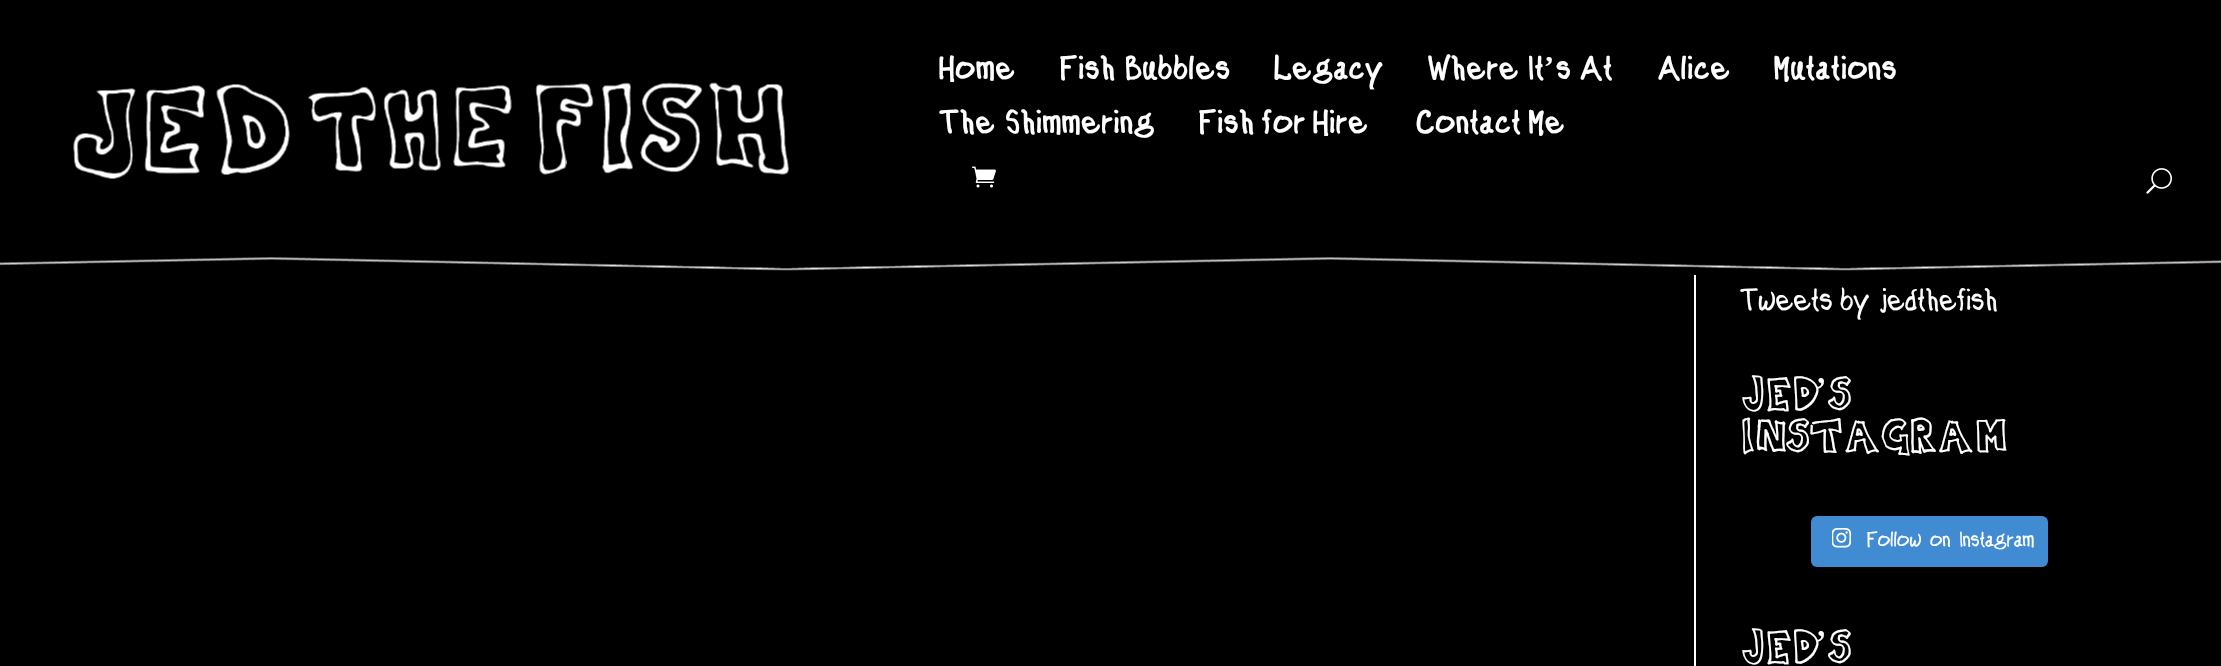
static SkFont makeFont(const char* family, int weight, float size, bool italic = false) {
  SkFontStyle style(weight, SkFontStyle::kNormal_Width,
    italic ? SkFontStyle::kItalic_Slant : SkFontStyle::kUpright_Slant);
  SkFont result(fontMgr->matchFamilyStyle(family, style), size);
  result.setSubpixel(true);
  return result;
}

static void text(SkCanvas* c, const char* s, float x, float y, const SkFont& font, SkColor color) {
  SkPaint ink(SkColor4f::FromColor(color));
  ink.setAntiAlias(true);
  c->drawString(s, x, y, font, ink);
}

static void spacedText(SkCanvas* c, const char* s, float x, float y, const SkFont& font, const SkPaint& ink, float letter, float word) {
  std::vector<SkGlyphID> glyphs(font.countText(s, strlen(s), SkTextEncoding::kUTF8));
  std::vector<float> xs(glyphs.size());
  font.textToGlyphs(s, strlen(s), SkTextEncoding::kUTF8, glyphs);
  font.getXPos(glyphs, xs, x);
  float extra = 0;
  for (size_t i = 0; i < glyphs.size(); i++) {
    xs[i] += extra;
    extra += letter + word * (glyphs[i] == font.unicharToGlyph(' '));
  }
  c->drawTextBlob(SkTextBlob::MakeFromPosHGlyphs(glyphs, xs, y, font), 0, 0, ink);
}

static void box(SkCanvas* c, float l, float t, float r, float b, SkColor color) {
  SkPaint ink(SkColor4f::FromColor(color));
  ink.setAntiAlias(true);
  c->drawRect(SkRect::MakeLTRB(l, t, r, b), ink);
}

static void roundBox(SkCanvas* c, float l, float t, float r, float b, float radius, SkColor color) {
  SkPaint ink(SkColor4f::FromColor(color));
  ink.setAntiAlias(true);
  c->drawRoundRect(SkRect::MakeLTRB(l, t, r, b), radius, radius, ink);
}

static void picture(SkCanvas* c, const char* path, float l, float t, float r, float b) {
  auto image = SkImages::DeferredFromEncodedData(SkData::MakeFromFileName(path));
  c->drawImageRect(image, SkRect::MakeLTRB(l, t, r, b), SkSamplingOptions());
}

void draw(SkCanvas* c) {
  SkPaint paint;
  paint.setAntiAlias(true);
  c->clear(0xff000000);
  picture(c, "img_01.png", 73, 82, 789, 179);
  SkFont face1 = makeFont("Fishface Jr", 700, 30);
  paint.setColor(0xffffffff);
  spacedText(c, "Home", 939, 77, face1, paint, 1.5f, 0);
  spacedText(c, "Fish Bubbles", 1060, 77, face1, paint, 1.5f, 1);
  spacedText(c, "Legacy", 1274, 77, face1, paint, 1.5f, 0);
  spacedText(c, "Where It", 1428, 77, face1, paint, 1.5f, 0);
  SkFont face2 = makeFont("Liberation Serif", 700, 30);
  spacedText(c, "’", 1544, 77, face2, paint, 1.5f, 0);
  spacedText(c, "s At", 1556, 77, face1, paint, 1.5f, 0);
  spacedText(c, "Alice", 1658, 77, face1, paint, 1.5f, 0);
  spacedText(c, "Mutations", 1774, 77, face1, paint, 1.5f, 0);
  spacedText(c, "The Shimmering", 939, 131, face1, paint, 1.5f, 1);
  spacedText(c, "Fish for Hire", 1199, 131, face1, paint, 1.5f, -2);
  spacedText(c, "Contact Me", 1416, 131, face1, paint, 1.5f, -2);
  picture(c, "img_02.png", 972, 166, 996, 188);
  picture(c, "img_03.png", 2146, 168, 2172, 194);
  picture(c, "img_04.png", 0, 257, 2221, 271);
  box(c, 1694, 275, 1696, 666, 0xffffffff);
  SkFont face3 = makeFont("Fishface Jr", 400, 28.5f);
  spacedText(c, "Tweets", 1740, 308, face3, paint, 0, 3);
  spacedText(c, "by jedthefish", 1840, 308, face3, paint, 0, 3);
  SkFont face4 = makeFont("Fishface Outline", 400, 42);
  text(c, "JED", 1740, 406, face4, 0xffffffff);
  SkFont face5 = makeFont("Liberation Serif", 400, 42);
  text(c, "’", 1814, 406, face5, 0xffffffff);
  text(c, "S", 1828, 406, face4, 0xffffffff);
  text(c, "INSTAGRAM", 1740, 448, face4, 0xffffffff);
  roundBox(c, 1811, 516, 2048, 567, 6, 0xff408bd1);
  picture(c, "img_05.png", 1832, 528, 1851, 548);
  SkFont face6 = makeFont("Fishface Jr", 400, 19.5f);
  spacedText(c, "Follow on Instagram", 1867, 545, face6, paint, 0, 4);
  text(c, "JED", 1740, 659, face4, 0xffffffff);
  text(c, "’", 1814, 659, face5, 0xffffffff);
  text(c, "S", 1828, 659, face4, 0xffffffff);
}
